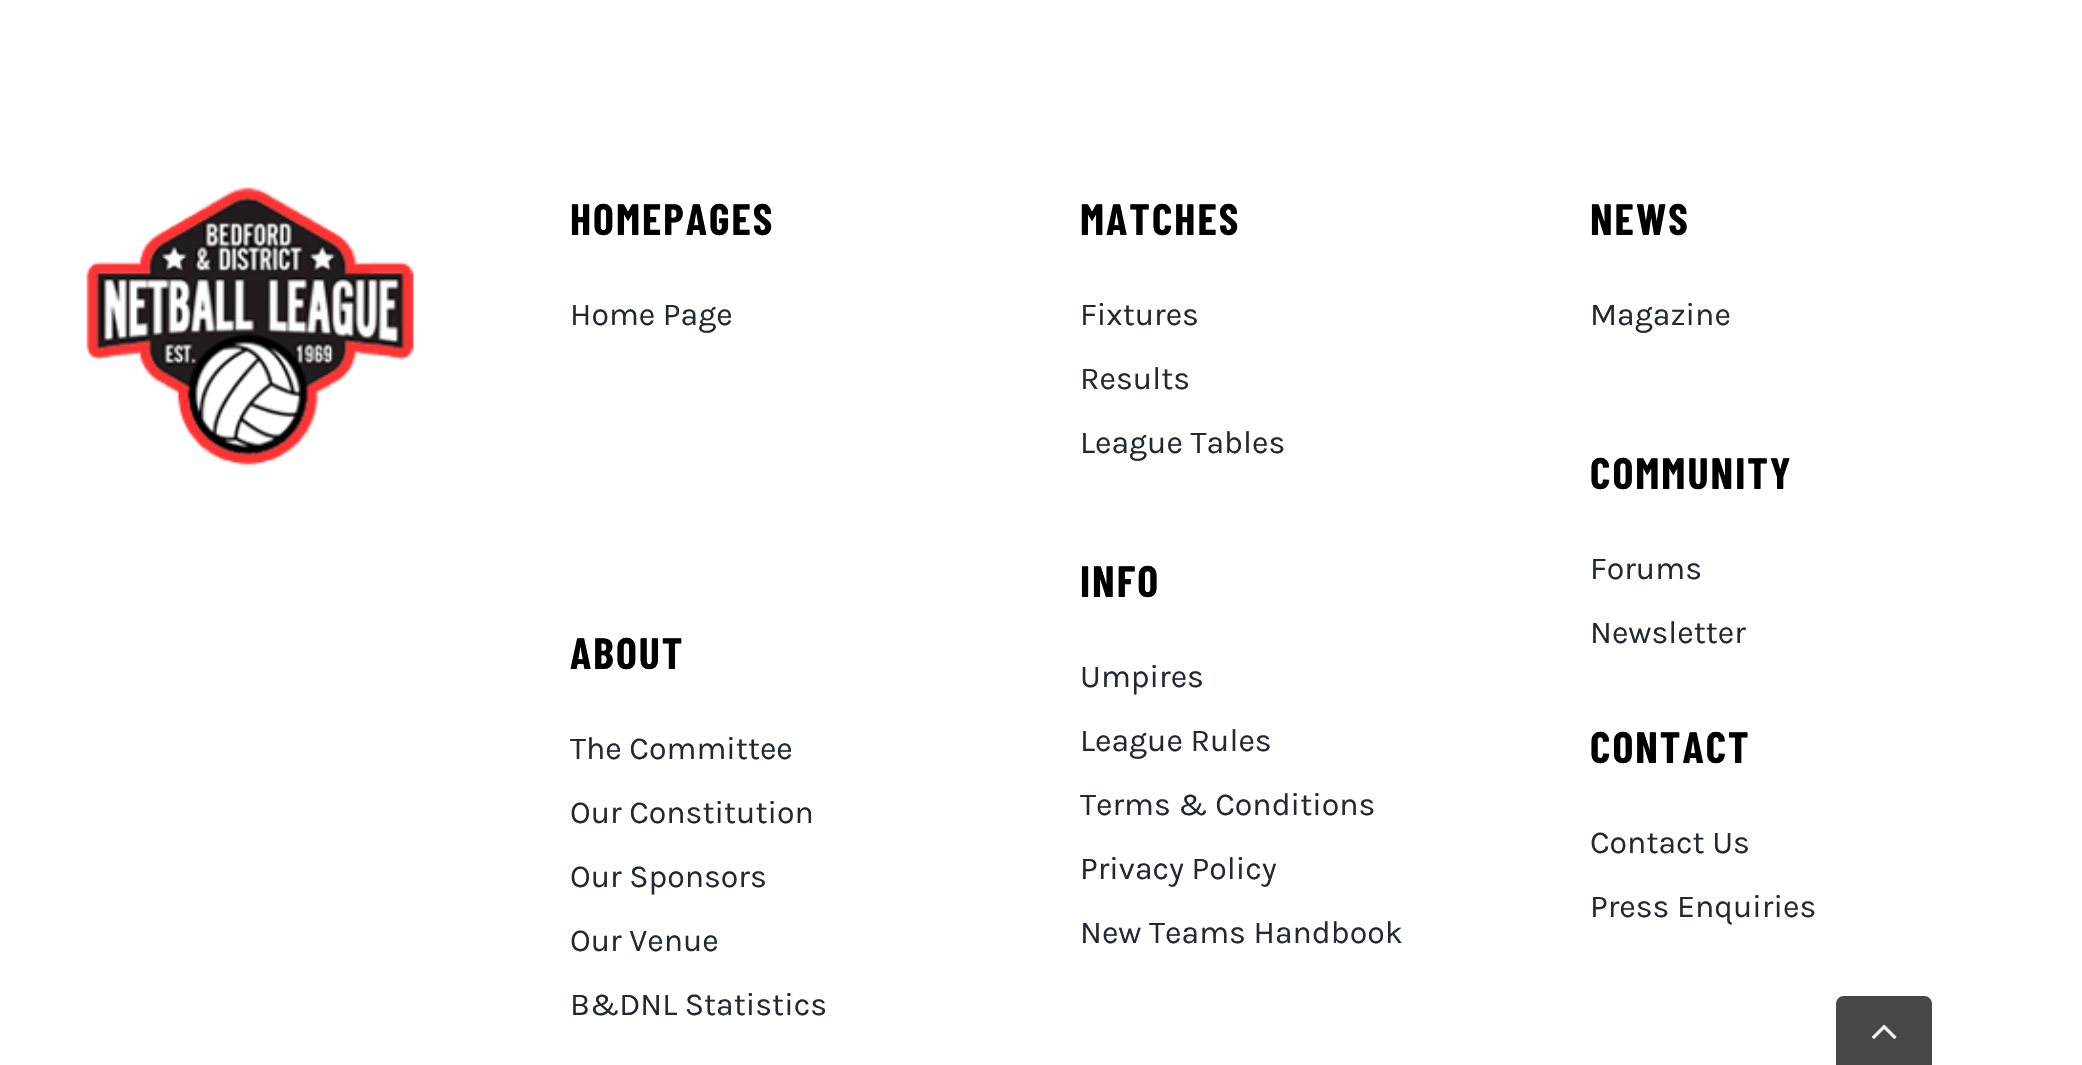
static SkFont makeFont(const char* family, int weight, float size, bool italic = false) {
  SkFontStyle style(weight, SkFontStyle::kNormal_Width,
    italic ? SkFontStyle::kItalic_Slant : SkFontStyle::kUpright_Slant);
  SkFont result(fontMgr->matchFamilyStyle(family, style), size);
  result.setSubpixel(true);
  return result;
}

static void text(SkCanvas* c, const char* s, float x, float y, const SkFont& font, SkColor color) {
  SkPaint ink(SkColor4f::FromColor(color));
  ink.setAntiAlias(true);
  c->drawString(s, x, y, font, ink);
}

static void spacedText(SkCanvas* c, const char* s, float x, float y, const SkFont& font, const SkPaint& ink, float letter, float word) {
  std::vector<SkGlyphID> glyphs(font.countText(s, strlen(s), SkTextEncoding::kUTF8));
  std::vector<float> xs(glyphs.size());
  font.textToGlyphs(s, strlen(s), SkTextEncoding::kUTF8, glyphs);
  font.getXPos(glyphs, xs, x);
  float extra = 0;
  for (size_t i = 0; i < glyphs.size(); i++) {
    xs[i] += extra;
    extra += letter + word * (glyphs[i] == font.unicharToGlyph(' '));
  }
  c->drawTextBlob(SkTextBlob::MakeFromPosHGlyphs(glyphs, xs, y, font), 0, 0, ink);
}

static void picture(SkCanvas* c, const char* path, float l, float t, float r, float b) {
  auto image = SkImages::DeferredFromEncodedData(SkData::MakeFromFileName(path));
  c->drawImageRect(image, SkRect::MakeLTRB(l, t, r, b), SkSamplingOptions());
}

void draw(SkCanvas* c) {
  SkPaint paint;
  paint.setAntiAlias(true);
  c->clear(0xffffffff);
  picture(c, "img_01.png", 86, 187, 414, 465);
  SkFont face1 = makeFont("Barlow Condensed", 700, 44);
  paint.setColor(0xff000000);
  spacedText(c, "HOMEPAGES", 570, 235, face1, paint, 2, 0);
  SkFont face2 = makeFont("Karla", 400, 32);
  text(c, "Home Page", 570, 325, face2, 0xff212934);
  spacedText(c, "ABOUT", 570, 669, face1, paint, 2, 0);
  text(c, "The Committee", 570, 759, face2, 0xff212934);
  text(c, "Our Constitution", 570, 823, face2, 0xff212934);
  text(c, "Our Sponsors", 570, 887, face2, 0xff212934);
  text(c, "Our Venue", 570, 951, face2, 0xff212934);
  text(c, "B&DNL Statistics", 570, 1015, face2, 0xff212934);
  spacedText(c, "MATCHES", 1080, 235, face1, paint, 2, 0);
  text(c, "Fixtures", 1080, 325, face2, 0xff212934);
  text(c, "Results", 1080, 389, face2, 0xff212934);
  text(c, "League Tables", 1080, 453, face2, 0xff212934);
  spacedText(c, "INFO", 1080, 597, face1, paint, 2, 0);
  text(c, "Umpires", 1080, 687, face2, 0xff212934);
  text(c, "League Rules", 1080, 751, face2, 0xff212934);
  text(c, "Terms & Conditions", 1080, 815, face2, 0xff212934);
  text(c, "Privacy Policy", 1080, 879, face2, 0xff212934);
  text(c, "New Teams Handbook", 1080, 943, face2, 0xff212934);
  spacedText(c, "NEWS", 1590, 235, face1, paint, 2, 0);
  text(c, "Magazine", 1590, 325, face2, 0xff212934);
  spacedText(c, "COMMUNITY", 1590, 489, face1, paint, 2, 0);
  text(c, "Forums", 1590, 579, face2, 0xff212934);
  text(c, "Newsletter", 1590, 643, face2, 0xff212934);
  spacedText(c, "CONTACT", 1590, 763, face1, paint, 2, 0);
  text(c, "Contact Us", 1590, 853, face2, 0xff212934);
  text(c, "Press Enquiries", 1590, 917, face2, 0xff212934);
  paint.setColor(0xff474747);
  c->drawPath(SkPathBuilder().moveTo(1844, 996).lineTo(1924, 996).cubicTo(1928.5f, 996, 1932, 999.5f, 1932, 1004).lineTo(1932, 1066).lineTo(1836, 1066).lineTo(1836, 1004).cubicTo(1836, 999.5f, 1839.5f, 996, 1844, 996).close().detach(), paint);
  picture(c, "img_02.png", 1872, 1024, 1897, 1039);
}
